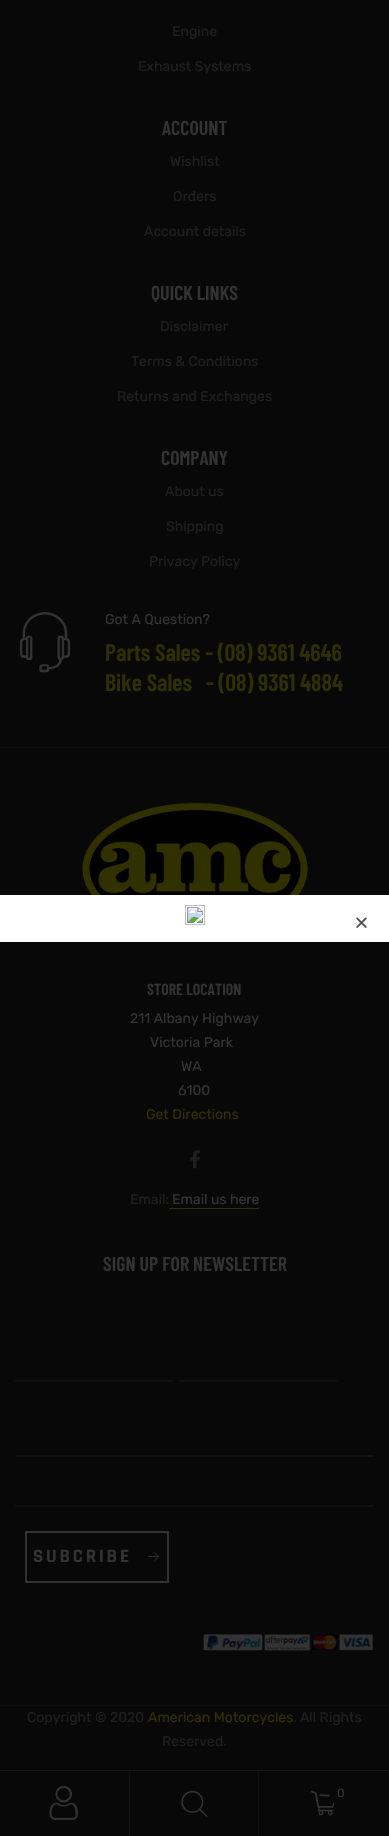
static SkFont makeFont(const char* family, int weight, float size, bool italic = false) {
  SkFontStyle style(weight, SkFontStyle::kNormal_Width,
    italic ? SkFontStyle::kItalic_Slant : SkFontStyle::kUpright_Slant);
  SkFont result(fontMgr->matchFamilyStyle(family, style), size);
  result.setSubpixel(true);
  return result;
}

static void text(SkCanvas* c, const char* s, float x, float y, const SkFont& font, SkColor color) {
  SkPaint ink(SkColor4f::FromColor(color));
  ink.setAntiAlias(true);
  c->drawString(s, x, y, font, ink);
}

static void spacedText(SkCanvas* c, const char* s, float x, float y, const SkFont& font, const SkPaint& ink, float letter, float word) {
  std::vector<SkGlyphID> glyphs(font.countText(s, strlen(s), SkTextEncoding::kUTF8));
  std::vector<float> xs(glyphs.size());
  font.textToGlyphs(s, strlen(s), SkTextEncoding::kUTF8, glyphs);
  font.getXPos(glyphs, xs, x);
  float extra = 0;
  for (size_t i = 0; i < glyphs.size(); i++) {
    xs[i] += extra;
    extra += letter + word * (glyphs[i] == font.unicharToGlyph(' '));
  }
  c->drawTextBlob(SkTextBlob::MakeFromPosHGlyphs(glyphs, xs, y, font), 0, 0, ink);
}

static void box(SkCanvas* c, float l, float t, float r, float b, SkColor color) {
  SkPaint ink(SkColor4f::FromColor(color));
  ink.setAntiAlias(true);
  c->drawRect(SkRect::MakeLTRB(l, t, r, b), ink);
}

static void picture(SkCanvas* c, const char* path, float l, float t, float r, float b) {
  auto image = SkImages::DeferredFromEncodedData(SkData::MakeFromFileName(path));
  c->drawImageRect(image, SkRect::MakeLTRB(l, t, r, b), SkSamplingOptions());
}

void draw(SkCanvas* c) {
  SkPaint paint;
  paint.setAntiAlias(true);
  c->clear(0xff080808);
  box(c, 0, 747, 389, 748, 0xff0d0d0d);
  SkFont face1 = makeFont("Rubik", 400, 14);
  text(c, "Engine", 172, 36, face1, 0xff1f1f1f);
  text(c, "Exhaust Systems", 138, 71, face1, 0xff1f1f1f);
  SkFont face2 = makeFont("Barlow Condensed", 600, 20);
  text(c, "ACCOUNT", 162, 135, face2, 0xff333333);
  text(c, "Wishlist", 170, 166, face1, 0xff1f1f1f);
  text(c, "Orders", 173, 201, face1, 0xff1f1f1f);
  text(c, "Account details", 144, 236, face1, 0xff1f1f1f);
  text(c, "QUICK LINKS", 151, 300, face2, 0xff333333);
  text(c, "Disclaimer", 160, 331, face1, 0xff1f1f1f);
  text(c, "Terms & Conditions", 131, 366, face1, 0xff1f1f1f);
  text(c, "Returns and Exchanges", 117, 401, face1, 0xff1f1f1f);
  text(c, "COMPANY", 161, 465, face2, 0xff333333);
  text(c, "About us", 165, 496, face1, 0xff1f1f1f);
  text(c, "Shipping", 166, 531, face1, 0xff1f1f1f);
  text(c, "Privacy Policy", 149, 566, face1, 0xff1f1f1f);
  picture(c, "img_01.png", 19, 612, 70, 673);
  text(c, "Got A Question?", 105, 624, face1, 0xff333333);
  SkFont face3 = makeFont("Barlow Condensed", 600, 24);
  text(c, "Parts Sales - (08) 9361 4646", 105, 661, face3, 0xff302f01);
  text(c, "Bike Sales", 105, 691, face3, 0xff302f01);
  text(c, "- (08) 9361 4884", 206, 691, face3, 0xff302f01);
  box(c, 0, 1705, 389, 1706, 0xff0d0d0d);
  picture(c, "img_02.png", 82, 802, 308, 895);
  SkFont face4 = makeFont("Barlow Condensed", 600, 16);
  text(c, "STORE LOCATION", 147, 995, face4, 0xff333333);
  text(c, "211 Albany Highway", 130, 1023, face1, 0xff333333);
  text(c, "Victoria Park", 150, 1047, face1, 0xff333333);
  text(c, "WA", 181, 1071, face1, 0xff333333);
  text(c, "6100", 178, 1095, face1, 0xff333333);
  text(c, "Get Directions", 146, 1119, face1, 0xff302f01);
  picture(c, "img_03.png", 190, 1150, 200, 1169);
  text(c, "Email:", 130, 1204, face1, 0xff1f1f1f);
  text(c, "Email us here", 172, 1204, face1, 0xff333333);
  box(c, 169, 1208, 259, 1209, 0xff302f01);
  text(c, "SIGN UP FOR NEWSLETTER", 103, 1271, face2, 0xff333333);
  box(c, 15, 1380, 173, 1382, 0xff101010);
  box(c, 179, 1380, 337, 1382, 0xff101010);
  box(c, 15, 1455, 374, 1457, 0xff101010);
  box(c, 15, 1505, 374, 1507, 0xff101010);
  paint.setStyle(SkPaint::kStroke_Style);
  paint.setStrokeWidth(2);
  paint.setColor(0xff333333);
  c->drawRect(SkRect::MakeLTRB(26, 1532, 168, 1582), paint);
  SkFont face5 = makeFont("Rajdhani", 700, 19);
  paint.setStyle(SkPaint::kFill_Style);
  spacedText(c, "SUBCRIBE", 33, 1562, face5, paint, 2.75f, 0);
  picture(c, "img_04.png", 148, 1552, 159, 1561);
  picture(c, "img_05.png", 203, 1634, 374, 1651);
  text(c, "Copyright © 2020", 27, 1722, face1, 0xff1f1f1f);
  text(c, "American Motorcycles", 148, 1722, face1, 0xff302f01);
  text(c, ". All Rights", 293, 1722, face1, 0xff1f1f1f);
  text(c, "Reserved.", 162, 1746, face1, 0xff1f1f1f);
  box(c, 0, 895, 389, 942, 0xffffffff);
  picture(c, "img_06.png", 185, 905, 205, 925);
  picture(c, "img_07.png", 356, 917, 367, 928);
  box(c, 0, 1770, 389, 1771, 0xff141516);
  box(c, 129, 1771, 130, 1836, 0xff101010);
  picture(c, "img_08.png", 49, 1785, 78, 1820);
  box(c, 258, 1771, 259, 1836, 0xff101010);
  picture(c, "img_09.png", 181, 1790, 208, 1817);
  picture(c, "img_10.png", 311, 1790, 335, 1816);
  paint.setColor(0xff080808);
  c->drawCircle(341, 1793, 12, paint);
  SkFont face6 = makeFont("Rubik", 400, 12);
  text(c, "0", 337, 1797, face6, 0xff333333);
}
